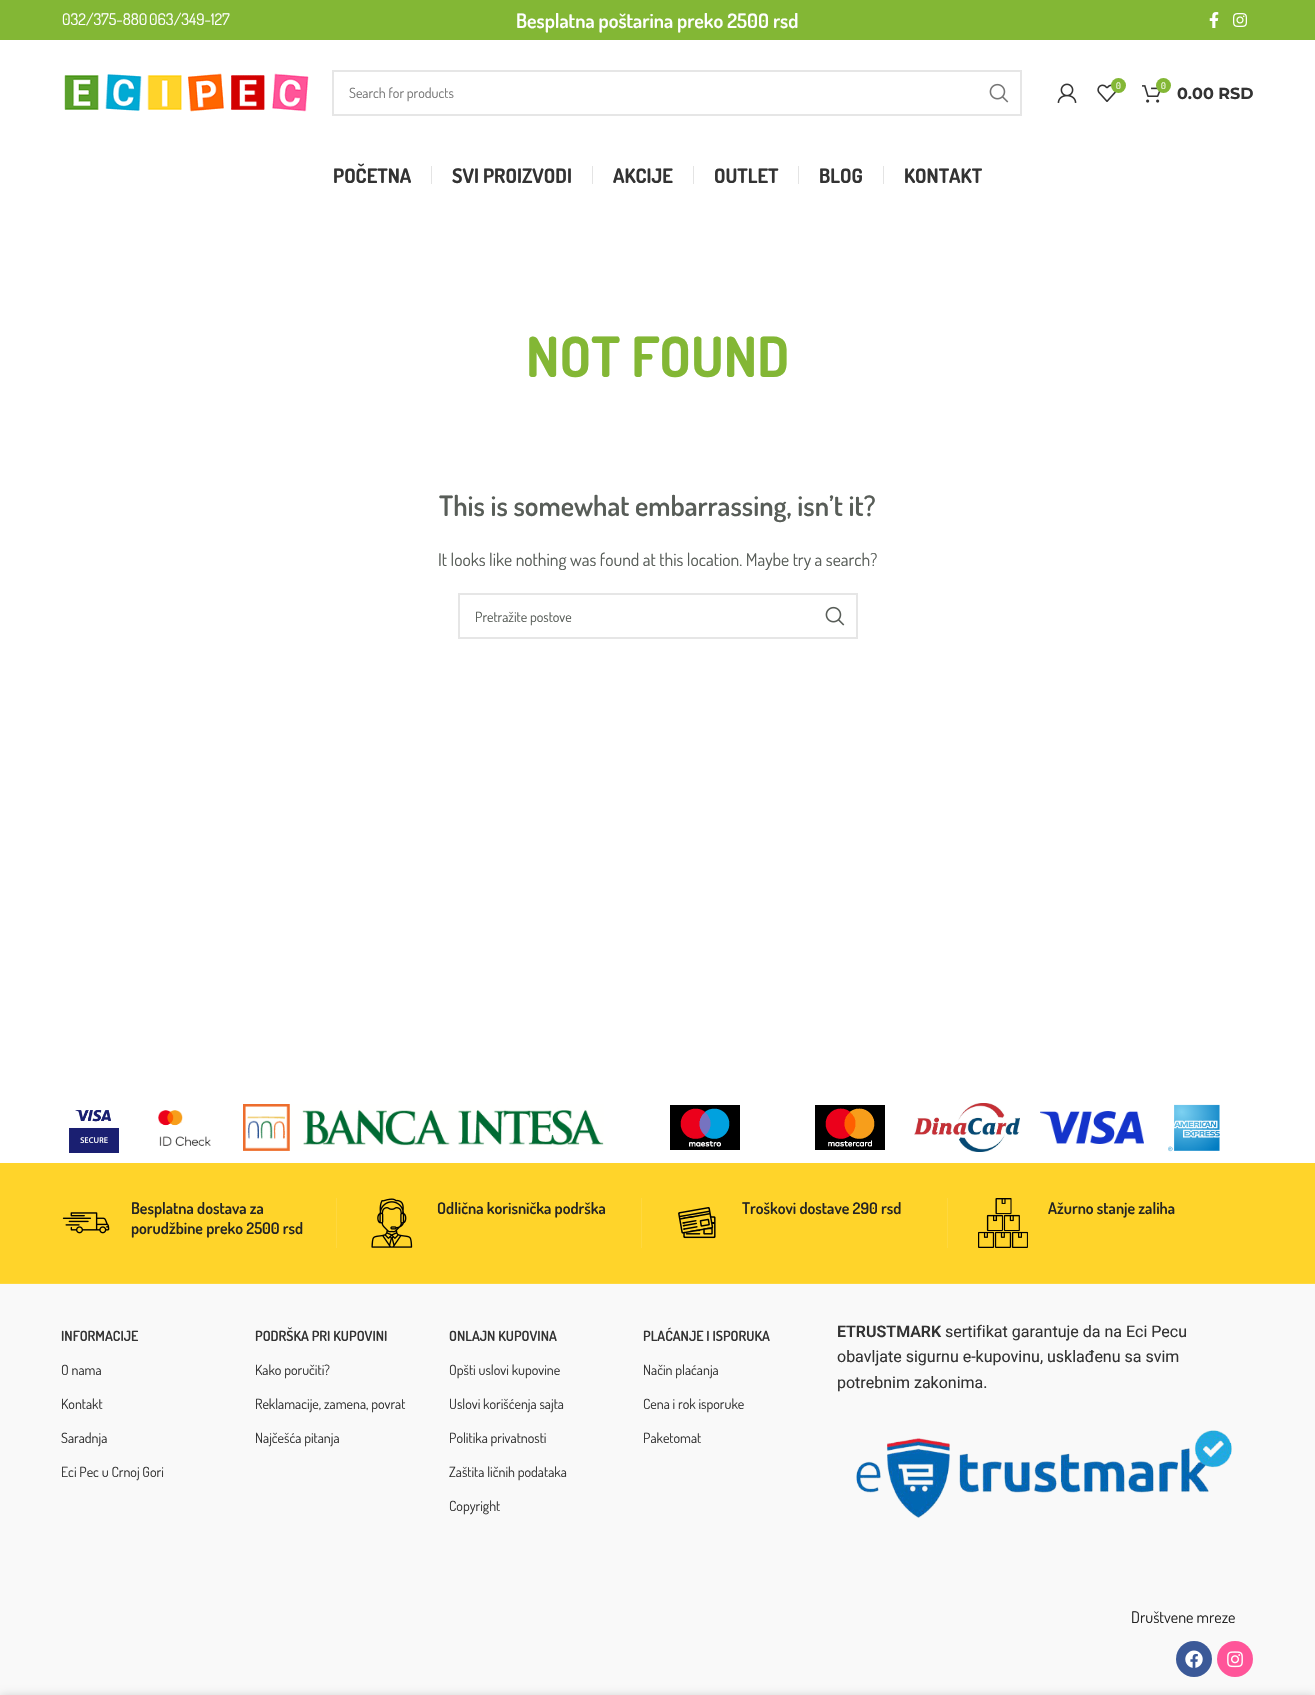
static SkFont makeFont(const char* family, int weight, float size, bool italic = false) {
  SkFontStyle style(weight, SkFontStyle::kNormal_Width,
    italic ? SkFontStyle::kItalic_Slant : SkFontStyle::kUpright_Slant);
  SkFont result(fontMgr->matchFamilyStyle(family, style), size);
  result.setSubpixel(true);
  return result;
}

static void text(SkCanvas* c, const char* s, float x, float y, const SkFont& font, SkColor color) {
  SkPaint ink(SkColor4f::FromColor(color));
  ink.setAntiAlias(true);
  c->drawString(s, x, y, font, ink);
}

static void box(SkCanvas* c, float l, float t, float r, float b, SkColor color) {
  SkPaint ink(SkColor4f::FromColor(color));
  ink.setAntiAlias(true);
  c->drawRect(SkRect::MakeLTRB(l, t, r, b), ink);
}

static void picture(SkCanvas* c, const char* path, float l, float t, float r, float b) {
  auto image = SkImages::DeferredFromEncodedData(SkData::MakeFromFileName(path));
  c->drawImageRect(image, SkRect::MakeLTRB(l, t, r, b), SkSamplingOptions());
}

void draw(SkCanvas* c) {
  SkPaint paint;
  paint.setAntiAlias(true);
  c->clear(0xffffffff);
  box(c, 0, 0, 1315, 40, 0xff83b735);
  SkFont face1 = makeFont("Dosis", 400, 16);
  text(c, "032/375-880", 62, 25, face1, 0xffffffff);
  text(c, "063/349-127", 149, 25, face1, 0xffffffff);
  SkFont face2 = makeFont("Dosis", 600, 20);
  text(c, "Besplatna poštarina preko 2500 rsd", 516, 28, face2, 0xffffffff);
  picture(c, "img_01.png", 1209, 12, 1219, 28);
  picture(c, "img_02.png", 1233, 13, 1247, 27);
  picture(c, "img_03.png", 64, 73, 309, 112);
  paint.setStyle(SkPaint::kStroke_Style);
  paint.setStrokeWidth(2);
  paint.setColor(0xffe6e6e6);
  c->drawRect(SkRect::MakeLTRB(333, 71, 1021, 115), paint);
  SkFont face3 = makeFont("Dosis", 400, 14);
  text(c, "Search for products", 349, 98, face3, 0xff767676);
  picture(c, "img_04.png", 989, 83, 1009, 103);
  picture(c, "img_05.png", 1057, 83, 1077, 103);
  picture(c, "img_06.png", 1097, 84, 1117, 102);
  paint.setStyle(SkPaint::kFill_Style);
  paint.setColor(0xff83b735);
  c->drawCircle(1118.5f, 85.5f, 7.5f, paint);
  SkFont face4 = makeFont("Dosis", 400, 9);
  text(c, "0", 1116, 89, face4, 0xffffffff);
  picture(c, "img_07.png", 1142, 85, 1161, 103);
  c->drawCircle(1163.5f, 85.5f, 7.5f, paint);
  text(c, "0", 1161, 89, face4, 0xffffffff);
  SkFont face5 = makeFont("Montserrat", 700, 16);
  text(c, "0.00 RSD", 1177, 99, face5, 0xff333333);
  SkFont face6 = makeFont("Dosis", 700, 20);
  text(c, "POČETNA", 333, 183, face6, 0xff333333);
  box(c, 431, 166, 432, 184, 0xffe4e4e4);
  text(c, "SVI PROIZVODI", 452, 183, face6, 0xff333333);
  box(c, 592, 166, 593, 184, 0xffe4e4e4);
  text(c, "AKCIJE", 613, 183, face6, 0xff333333);
  box(c, 693, 166, 694, 184, 0xffe4e4e4);
  text(c, "OUTLET", 714, 183, face6, 0xff333333);
  box(c, 798, 166, 799, 184, 0xffe4e4e4);
  text(c, "BLOG", 819, 183, face6, 0xff333333);
  box(c, 883, 166, 884, 184, 0xffe4e4e4);
  text(c, "KONTAKT", 904, 183, face6, 0xff333333);
  SkFont face7 = makeFont("Dosis", 700, 55.25f);
  text(c, "NOT FOUND", 526, 377, face7, 0xff83b735);
  SkFont face8 = makeFont("Dosis", 600, 28);
  text(c, "This is somewhat embarrassing, isn’t it?", 439, 516, face8, 0xff585d58);
  SkFont face9 = makeFont("Dosis", 400, 17.6f);
  text(c, "It looks like nothing was found at this location. Maybe try a search?", 438, 566, face9, 0xff585d58);
  paint.setStyle(SkPaint::kStroke_Style);
  paint.setColor(0xffe6e6e6);
  c->drawRect(SkRect::MakeLTRB(459, 594, 857, 638), paint);
  text(c, "Pretražite postove", 475, 622, face3, 0xff585d58);
  picture(c, "img_08.png", 825, 606, 845, 626);
  picture(c, "img_09.png", 69, 1110, 119, 1153);
  picture(c, "img_10.png", 158, 1110, 211, 1146);
  picture(c, "img_11.png", 243, 1104, 604, 1151);
  picture(c, "img_12.png", 670, 1105, 740, 1150);
  picture(c, "img_13.png", 815, 1105, 885, 1150);
  picture(c, "img_14.png", 914, 1103, 1020, 1152);
  picture(c, "img_15.png", 1040, 1111, 1144, 1144);
  picture(c, "img_16.png", 1168, 1104, 1220, 1152);
  box(c, 0, 1163, 1315, 1283, 0xffffd42a);
  box(c, 0, 1283, 1315, 1284, 0xffffd83f);
  box(c, 336, 1198, 337, 1248, 0xffffd83f);
  picture(c, "img_17.png", 62, 1212, 110, 1234);
  SkFont face10 = makeFont("Dosis", 600, 16);
  text(c, "Besplatna dostava za", 131, 1214, face10, 0xff242424);
  text(c, "porudžbine preko 2500 rsd", 131, 1234, face10, 0xff242424);
  box(c, 641, 1198, 642, 1248, 0xffffd83f);
  picture(c, "img_18.png", 371, 1198, 413, 1248);
  text(c, "Odlična korisnička podrška", 437, 1214, face10, 0xff242424);
  box(c, 947, 1198, 948, 1248, 0xffffd83f);
  picture(c, "img_19.png", 678, 1207, 716, 1239);
  text(c, "Troškovi dostave 290 rsd", 742, 1214, face10, 0xff242424);
  picture(c, "img_20.png", 978, 1198, 1028, 1248);
  text(c, "Ažurno stanje zaliha", 1048, 1214, face10, 0xff242424);
  box(c, 0, 1284, 1315, 1695, 0xfff9f9f9);
  SkFont face11 = makeFont("Dosis", 600, 14);
  text(c, "INFORMACIJE", 61, 1341, face11, 0xff333333);
  text(c, "O nama", 61, 1375, face3, 0xff333333);
  text(c, "Kontakt", 61, 1409, face3, 0xff333333);
  text(c, "Saradnja", 61, 1443, face3, 0xff333333);
  text(c, "Eci Pec u Crnoj Gori", 61, 1477, face3, 0xff333333);
  text(c, "PODRŠKA PRI KUPOVINI", 255, 1341, face11, 0xff333333);
  text(c, "Kako poručiti?", 255, 1375, face3, 0xff333333);
  text(c, "Reklamacije, zamena, povrat", 255, 1409, face3, 0xff333333);
  text(c, "Najčešća pitanja", 255, 1443, face3, 0xff333333);
  text(c, "ONLAJN KUPOVINA", 449, 1341, face11, 0xff333333);
  text(c, "Opšti uslovi kupovine", 449, 1375, face3, 0xff333333);
  text(c, "Uslovi korišćenja sajta", 449, 1409, face3, 0xff333333);
  text(c, "Politika privatnosti", 449, 1443, face3, 0xff333333);
  text(c, "Zaštita ličnih podataka", 449, 1477, face3, 0xff333333);
  text(c, "Copyright", 449, 1511, face3, 0xff333333);
  text(c, "PLAĆANJE I ISPORUKA", 643, 1341, face11, 0xff333333);
  text(c, "Način plaćanja", 643, 1375, face3, 0xff333333);
  text(c, "Cena i rok isporuke", 643, 1409, face3, 0xff333333);
  text(c, "Paketomat", 643, 1443, face3, 0xff333333);
  SkFont face12 = makeFont("Roboto", 600, 16);
  text(c, "ETRUSTMARK", 837, 1337, face12, 0xff333333);
  SkFont face13 = makeFont("Roboto", 400, 16);
  text(c, "sertifikat garantuje da na Eci Pecu", 945, 1337, face13, 0xff333333);
  text(c, "obavljate sigurnu e-kupovinu, usklađenu sa svim", 837, 1362, face13, 0xff333333);
  text(c, "potrebnim zakonima.", 837, 1388, face13, 0xff333333);
  picture(c, "img_21.png", 856, 1430, 1232, 1518);
  text(c, "Društvene mreze", 1131, 1623, face1, 0xff242424);
  paint.setStyle(SkPaint::kFill_Style);
  paint.setColor(0xff3b5998);
  c->drawCircle(1194, 1659, 18, paint);
  picture(c, "img_22.png", 1185, 1650, 1203, 1668);
  paint.setColor(0xffff5599);
  c->drawCircle(1235, 1659, 18, paint);
  picture(c, "img_23.png", 1227, 1651, 1243, 1668);
  paint.setColor(0x24000000);
  paint.setMaskFilter(SkMaskFilter::MakeBlur(kNormal_SkBlurStyle, 4.5f));
  c->drawRect(SkRect::MakeLTRB(0, 1695, 1315, 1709), paint);
  paint.setMaskFilter(nullptr);
}
